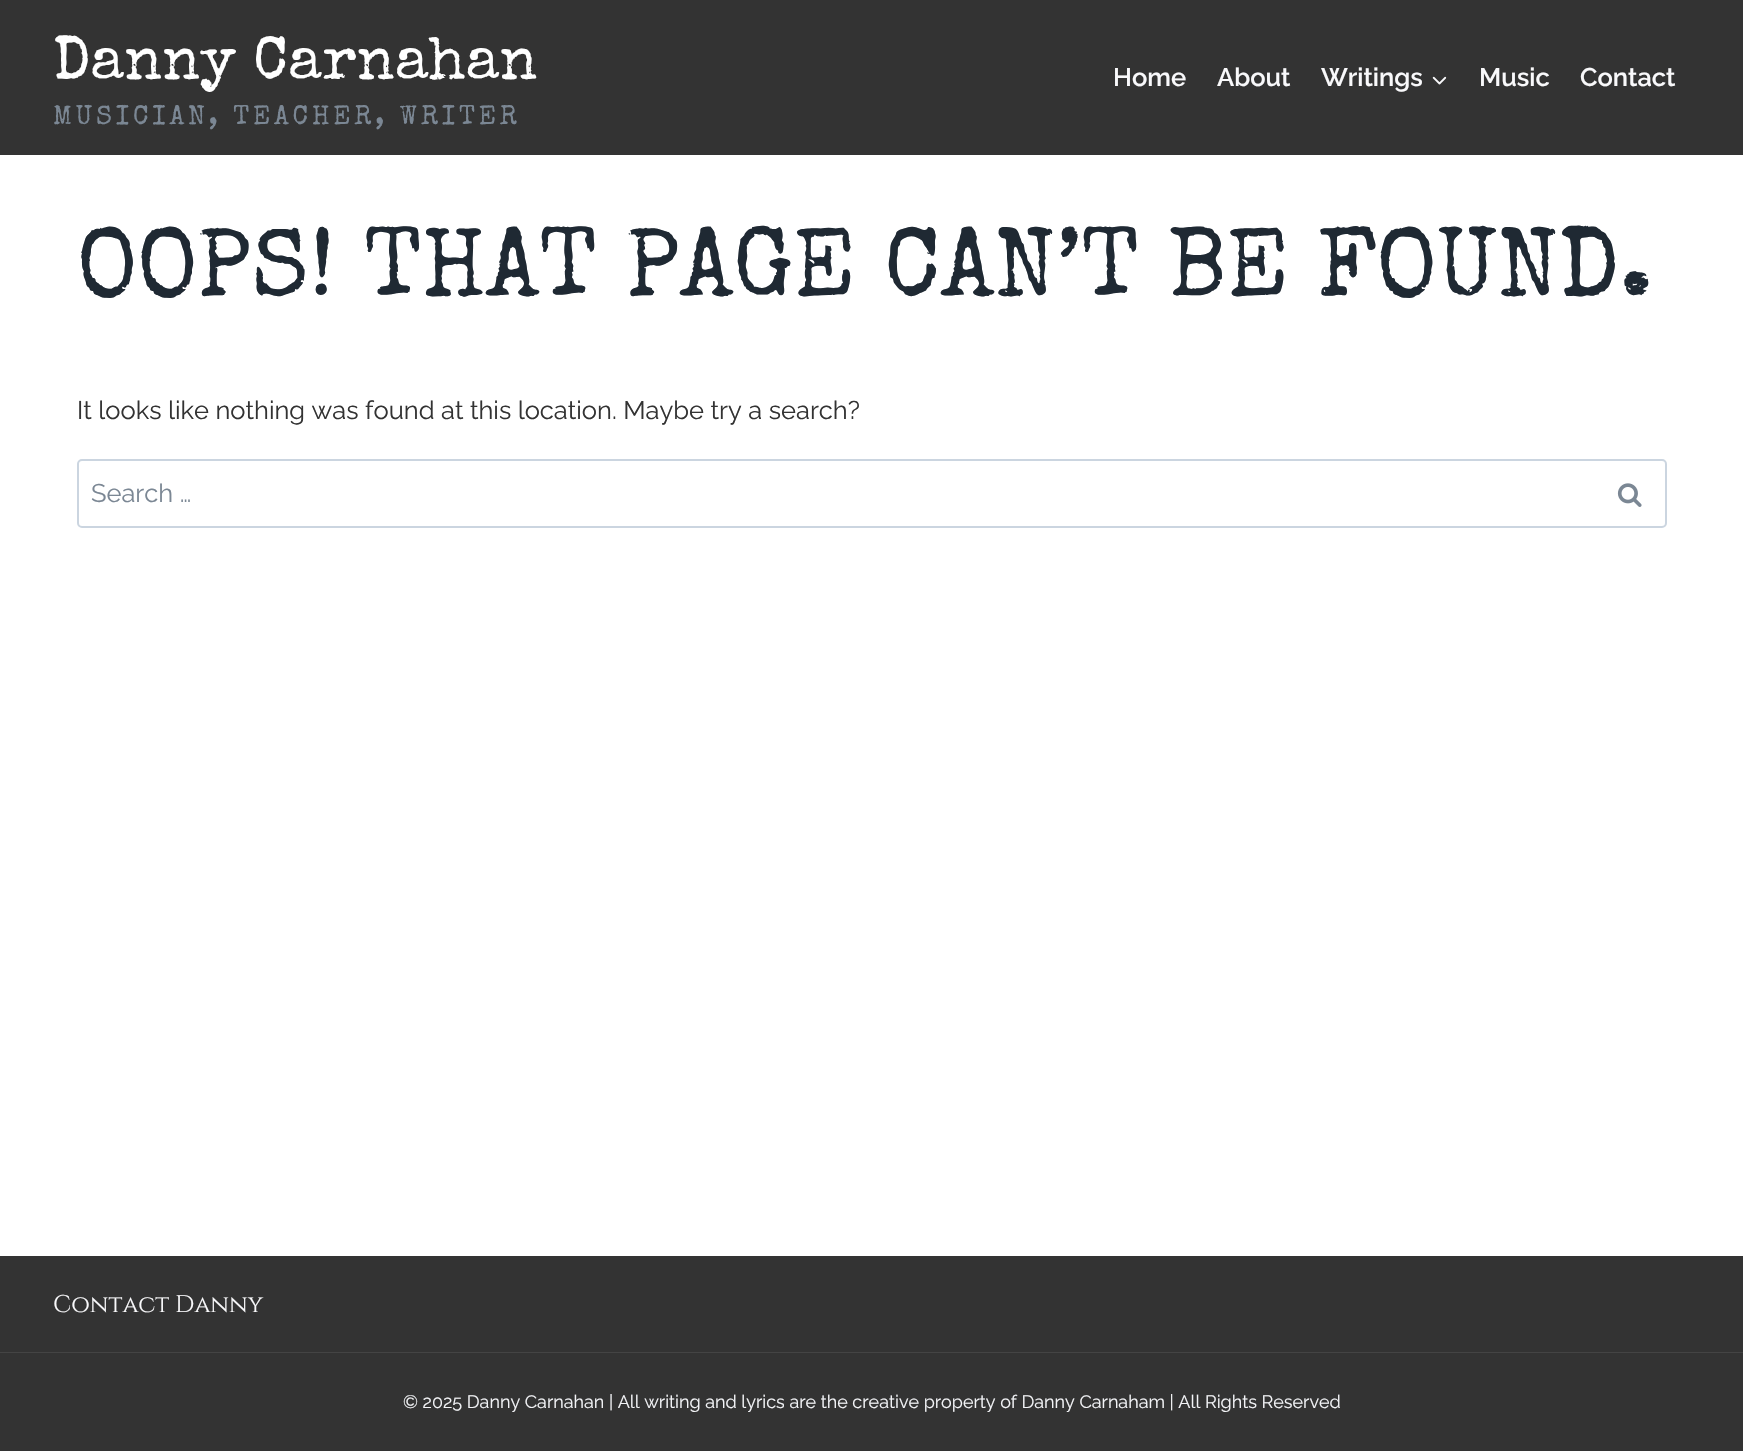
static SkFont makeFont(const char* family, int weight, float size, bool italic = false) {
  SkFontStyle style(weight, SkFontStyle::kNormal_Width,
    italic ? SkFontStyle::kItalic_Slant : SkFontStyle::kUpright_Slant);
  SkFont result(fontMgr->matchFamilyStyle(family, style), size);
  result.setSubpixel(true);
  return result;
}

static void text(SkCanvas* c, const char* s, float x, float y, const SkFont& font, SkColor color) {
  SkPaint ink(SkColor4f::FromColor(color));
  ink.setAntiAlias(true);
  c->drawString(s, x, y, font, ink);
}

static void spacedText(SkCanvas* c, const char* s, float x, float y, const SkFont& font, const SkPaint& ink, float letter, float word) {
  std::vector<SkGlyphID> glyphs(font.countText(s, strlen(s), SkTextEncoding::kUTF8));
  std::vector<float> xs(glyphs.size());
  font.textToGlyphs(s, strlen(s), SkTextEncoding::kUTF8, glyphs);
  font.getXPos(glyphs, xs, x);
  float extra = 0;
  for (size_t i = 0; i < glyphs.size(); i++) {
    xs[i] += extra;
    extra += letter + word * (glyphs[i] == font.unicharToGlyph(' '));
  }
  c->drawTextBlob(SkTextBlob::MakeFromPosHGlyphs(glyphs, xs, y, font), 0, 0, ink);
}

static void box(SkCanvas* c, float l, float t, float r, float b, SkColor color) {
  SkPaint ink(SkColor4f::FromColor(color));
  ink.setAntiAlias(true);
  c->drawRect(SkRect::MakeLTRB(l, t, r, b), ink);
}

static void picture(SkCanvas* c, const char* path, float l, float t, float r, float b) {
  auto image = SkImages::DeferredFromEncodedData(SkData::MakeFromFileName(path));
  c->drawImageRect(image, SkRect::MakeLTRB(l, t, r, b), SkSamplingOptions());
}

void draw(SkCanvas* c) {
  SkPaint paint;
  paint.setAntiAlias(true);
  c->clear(0xffffffff);
  box(c, 0, 0, 1743, 155, 0xff333333);
  SkFont face1 = makeFont("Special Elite", 400, 60);
  text(c, "Danny Carnahan", 53, 78, face1, 0xffffffff);
  SkFont face2 = makeFont("Special Elite", 400, 27);
  paint.setColor(0xff7b8794);
  spacedText(c, "MUSICIAN, TEACHER, WRITER", 53, 124, face2, paint, 3.75f, 0);
  SkFont face3 = makeFont("Raleway", 600, 25.5f);
  text(c, "Home", 1113, 86, face3, 0xfff9f9fb);
  text(c, "About", 1217, 86, face3, 0xfff9f9fb);
  text(c, "Writings", 1321, 86, face3, 0xfff9f9fb);
  picture(c, "img_01.png", 1432, 76, 1447, 85);
  text(c, "Music", 1479, 86, face3, 0xfff9f9fb);
  text(c, "Contact", 1580, 86, face3, 0xfff9f9fb);
  SkFont face4 = makeFont("Special Elite", 400, 97.5f);
  text(c, "OOPS! THAT PAGE CAN’T BE FOUND.", 77, 295, face4, 0xff1f2933);
  SkFont face5 = makeFont("Raleway", 400, 25.5f);
  text(c, "It looks like nothing was found at this location. Maybe try a search?", 77, 419, face5, 0xff333333);
  paint.setStyle(SkPaint::kStroke_Style);
  paint.setStrokeWidth(2);
  paint.setColor(0xffcbd5e0);
  c->drawRoundRect(SkRect::MakeLTRB(78, 460, 1666, 527), 4, 4, paint);
  text(c, "Search …", 91, 502, face5, 0xff7b8794);
  picture(c, "img_02.png", 1617, 483, 1642, 507);
  box(c, 0, 1256, 1743, 1352, 0xff333333);
  box(c, 0, 1352, 1743, 1353, 0xff444444);
  SkFont face6 = makeFont("Cinzel", 400, 24);
  text(c, "Contact Danny", 53, 1312, face6, 0xfff9f9fb);
  box(c, 0, 1353, 1743, 1451, 0xff333333);
  SkFont face7 = makeFont("Raleway", 400, 18);
  text(c, "© 2025 Danny Carnahan | All writing and lyrics are the creative property of Danny Carnaham | All Rights Reserved", 403, 1408, face7, 0xfff3f4f7);
}
